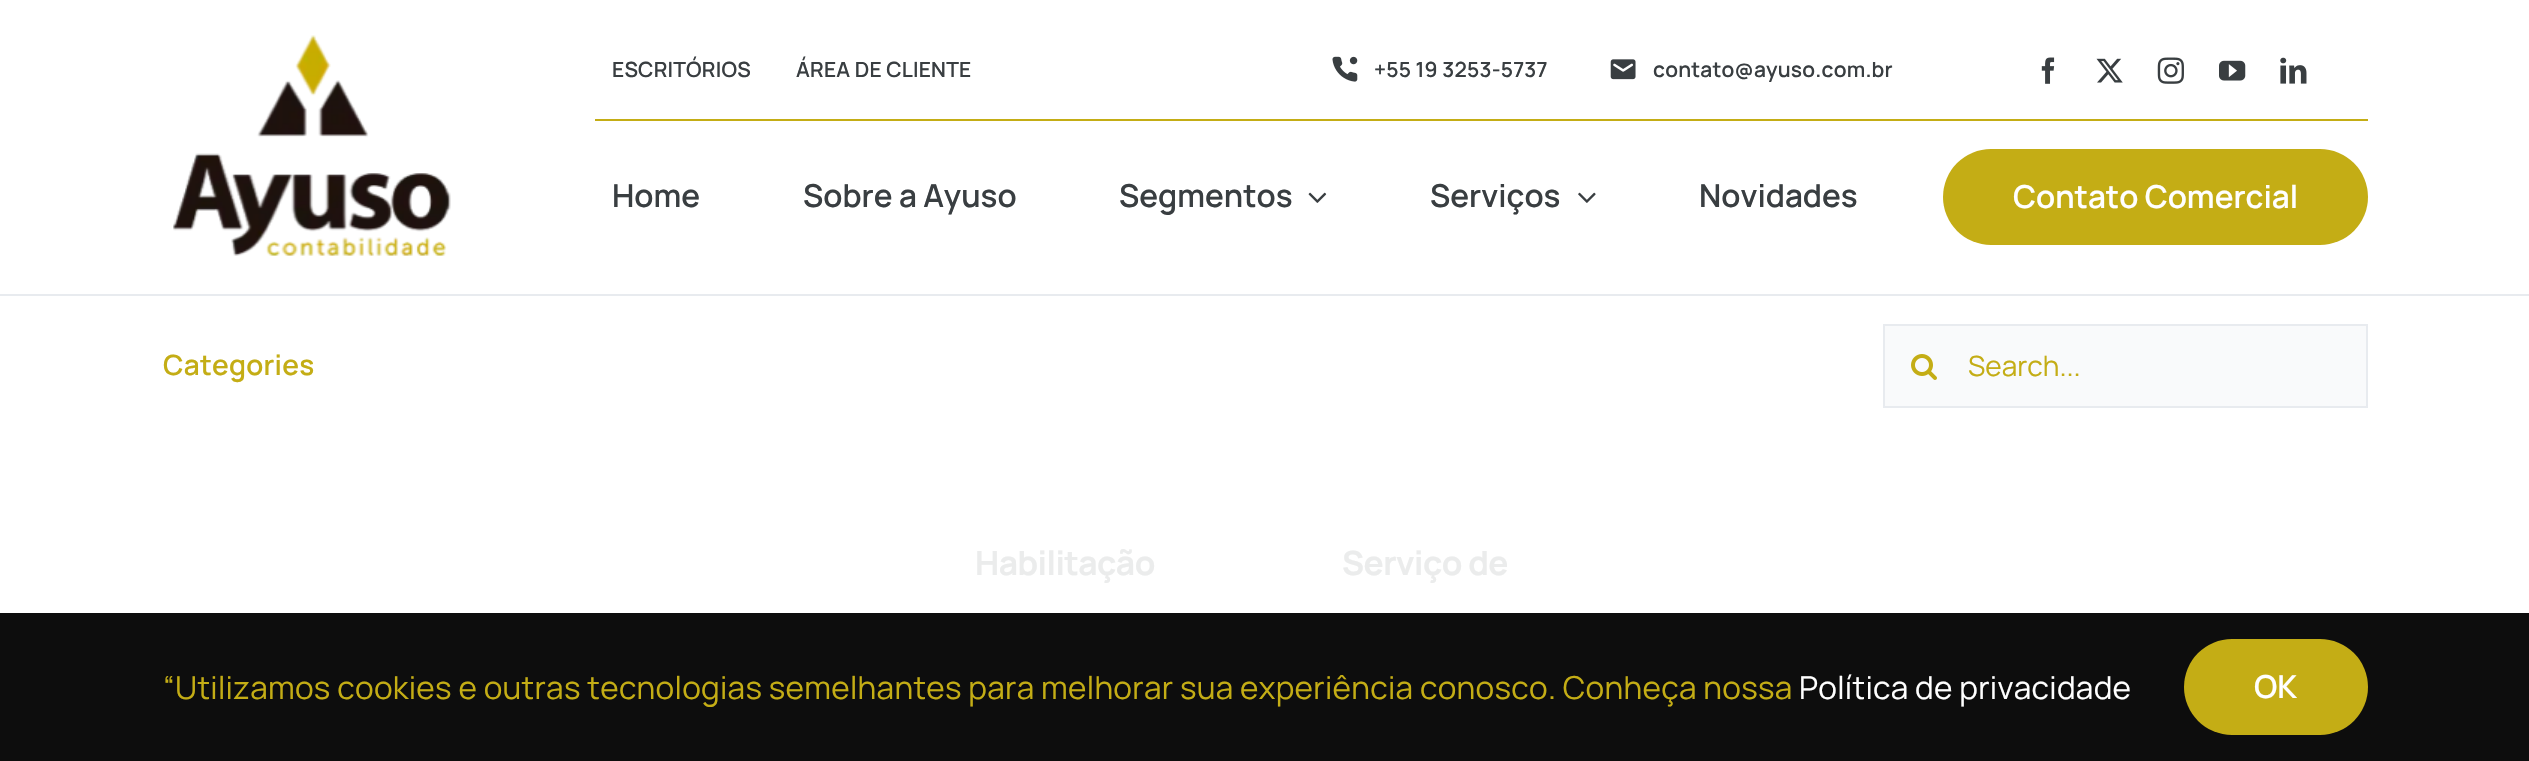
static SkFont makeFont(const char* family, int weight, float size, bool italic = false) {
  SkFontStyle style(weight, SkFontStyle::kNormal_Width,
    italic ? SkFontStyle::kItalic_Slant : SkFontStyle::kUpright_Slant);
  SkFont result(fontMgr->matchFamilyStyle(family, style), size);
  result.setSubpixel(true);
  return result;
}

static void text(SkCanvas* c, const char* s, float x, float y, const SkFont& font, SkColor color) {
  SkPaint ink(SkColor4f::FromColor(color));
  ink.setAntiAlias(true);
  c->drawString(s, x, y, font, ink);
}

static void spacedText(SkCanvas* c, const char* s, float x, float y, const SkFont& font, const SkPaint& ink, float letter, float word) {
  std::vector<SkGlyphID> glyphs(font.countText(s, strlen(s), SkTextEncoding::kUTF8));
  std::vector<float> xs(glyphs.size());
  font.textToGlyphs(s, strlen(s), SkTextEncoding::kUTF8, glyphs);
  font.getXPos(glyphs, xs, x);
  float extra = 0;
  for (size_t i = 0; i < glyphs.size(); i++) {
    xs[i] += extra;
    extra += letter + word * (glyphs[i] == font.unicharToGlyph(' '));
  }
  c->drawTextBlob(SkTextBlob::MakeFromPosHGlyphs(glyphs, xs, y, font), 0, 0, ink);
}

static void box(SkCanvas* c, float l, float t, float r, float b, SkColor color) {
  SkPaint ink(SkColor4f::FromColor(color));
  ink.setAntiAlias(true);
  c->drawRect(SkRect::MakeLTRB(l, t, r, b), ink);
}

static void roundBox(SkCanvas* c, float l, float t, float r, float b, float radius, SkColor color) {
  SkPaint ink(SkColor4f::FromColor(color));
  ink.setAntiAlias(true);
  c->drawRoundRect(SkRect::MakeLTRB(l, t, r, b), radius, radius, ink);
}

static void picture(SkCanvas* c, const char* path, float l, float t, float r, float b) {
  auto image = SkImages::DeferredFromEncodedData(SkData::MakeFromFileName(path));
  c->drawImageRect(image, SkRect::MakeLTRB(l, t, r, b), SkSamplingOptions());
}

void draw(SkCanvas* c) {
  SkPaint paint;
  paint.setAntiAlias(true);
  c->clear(0xffffffff);
  picture(c, "img_01.png", 173, 35, 451, 256);
  box(c, 595, 119, 2368, 121, 0xffc4ad15);
  SkFont face1 = makeFont("Manrope", 600, 21);
  paint.setColor(0xff393e41);
  spacedText(c, "ESCRITÓRIOS", 612, 77, face1, paint, 0.2f, 0);
  spacedText(c, "ÁREA DE CLIENTE", 796, 77, face1, paint, 0.2f, 0);
  picture(c, "img_02.png", 1332, 56, 1358, 82);
  spacedText(c, "+55 19 3253-5737", 1374, 77, face1, paint, 0.2f, 0);
  picture(c, "img_03.png", 1610, 59, 1636, 80);
  spacedText(c, "contato@ayuso.com.br", 1653, 77, face1, paint, 0.2f, 0);
  picture(c, "img_04.png", 2041, 57, 2055, 84);
  picture(c, "img_05.png", 2096, 58, 2123, 83);
  picture(c, "img_06.png", 2157, 57, 2184, 84);
  picture(c, "img_07.png", 2219, 60, 2246, 81);
  picture(c, "img_08.png", 2280, 57, 2307, 84);
  SkFont face2 = makeFont("Manrope", 600, 31.5f);
  text(c, "Sobre a Ayuso", 803, 207, face2, 0xff393e41);
  text(c, "Serviços", 1430, 207, face2, 0xff393e41);
  picture(c, "img_09.png", 1578, 192, 1596, 203);
  SkFont face3 = makeFont("Manrope", 700, 33.5f);
  paint.setColor(0xffebecec);
  spacedText(c, "Habilitação", 975, 575, face3, paint, -0.5f, 0);
  spacedText(c, "Serviço de", 1342, 575, face3, paint, -0.5f, 0);
  text(c, "Home", 612, 207, face2, 0xff393e41);
  text(c, "Segmentos", 1119, 207, face2, 0xff393e41);
  picture(c, "img_10.png", 1308, 192, 1327, 203);
  text(c, "Novidades", 1699, 207, face2, 0xff393e41);
  roundBox(c, 1943, 149, 2368, 245, 48, 0xffc4ad15);
  text(c, "Contato Comercial", 2013, 208, face2, 0xffffffff);
  box(c, 0, 294, 2529, 296, 0xffe8ebef);
  SkFont face4 = makeFont("Manrope", 600, 28);
  paint.setColor(0xffc4ad15);
  spacedText(c, "Categories", 163, 375, face4, paint, 0.25f, 0);
  paint.setColor(0xfff9fafb);
  c->drawRect(SkRect::MakeLTRB(1884, 325, 2367, 407), paint);
  paint.setStyle(SkPaint::kStroke_Style);
  paint.setStrokeWidth(2);
  paint.setColor(0xffe8ebef);
  c->drawRect(SkRect::MakeLTRB(1884, 325, 2367, 407), paint);
  picture(c, "img_11.png", 1911, 354, 1937, 380);
  SkFont face5 = makeFont("Manrope", 400, 28);
  text(c, "Search...", 1968, 376, face5, 0xffc4ad15);
  box(c, 0, 613, 2529, 761, 0xf2000000);
  SkFont face6 = makeFont("Manrope", 400, 31.5f);
  paint.setStyle(SkPaint::kFill_Style);
  paint.setColor(0xffc4ad15);
  spacedText(c, "“Utilizamos cookies e outras tecnologias semelhantes para melhorar sua experiência conosco. Conheça nossa", 163, 699, face6, paint, 0.28f, 0);
  paint.setColor(0xffffffff);
  spacedText(c, "Política de privacidade", 1799, 699, face6, paint, 0.28f, 0);
  roundBox(c, 2184, 639, 2368, 735, 48, 0xffc4ad15);
  text(c, "OK", 2254, 698, face2, 0xffffffff);
}
